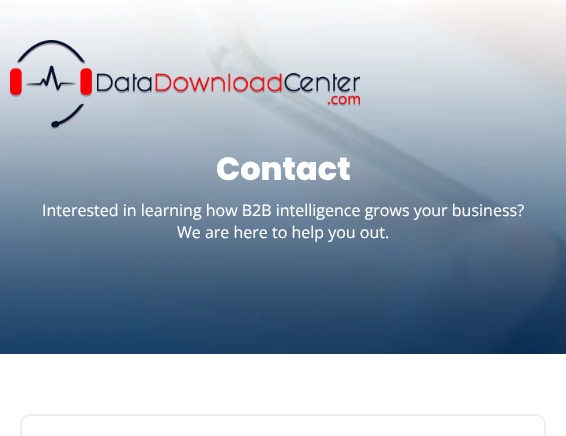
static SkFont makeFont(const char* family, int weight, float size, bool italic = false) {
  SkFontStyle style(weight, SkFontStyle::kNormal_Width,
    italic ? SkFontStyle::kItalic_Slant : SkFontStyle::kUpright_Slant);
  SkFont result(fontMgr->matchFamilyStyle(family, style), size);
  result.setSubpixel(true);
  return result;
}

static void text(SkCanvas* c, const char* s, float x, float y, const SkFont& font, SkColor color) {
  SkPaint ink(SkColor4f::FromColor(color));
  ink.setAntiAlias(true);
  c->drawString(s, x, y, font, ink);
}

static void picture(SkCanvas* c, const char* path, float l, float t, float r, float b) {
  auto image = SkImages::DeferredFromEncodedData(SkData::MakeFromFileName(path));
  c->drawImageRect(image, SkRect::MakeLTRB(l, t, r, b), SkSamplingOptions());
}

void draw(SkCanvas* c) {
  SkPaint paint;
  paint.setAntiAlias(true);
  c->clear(0xffffffff);
  picture(c, "img_02.png", 0, 0, 566, 354);
  picture(c, "img_01.png", 10, 40, 360, 129);
  SkFont face1 = makeFont("Poppins", 800, 32);
  text(c, "Contact", 216, 180, face1, 0xffffffff);
  SkFont face2 = makeFont("Open Sans", 400, 16);
  text(c, "Interested in learning how B2B intelligence grows your business?", 42, 216, face2, 0xffffffff);
  text(c, "We are here to help you out.", 177, 238, face2, 0xffffffff);
  paint.setStyle(SkPaint::kStroke_Style);
  paint.setStrokeWidth(2);
  paint.setColor(0xffeeeeee);
  c->drawRoundRect(SkRect::MakeLTRB(21, 415, 545, 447), 9, 9, paint);
}
